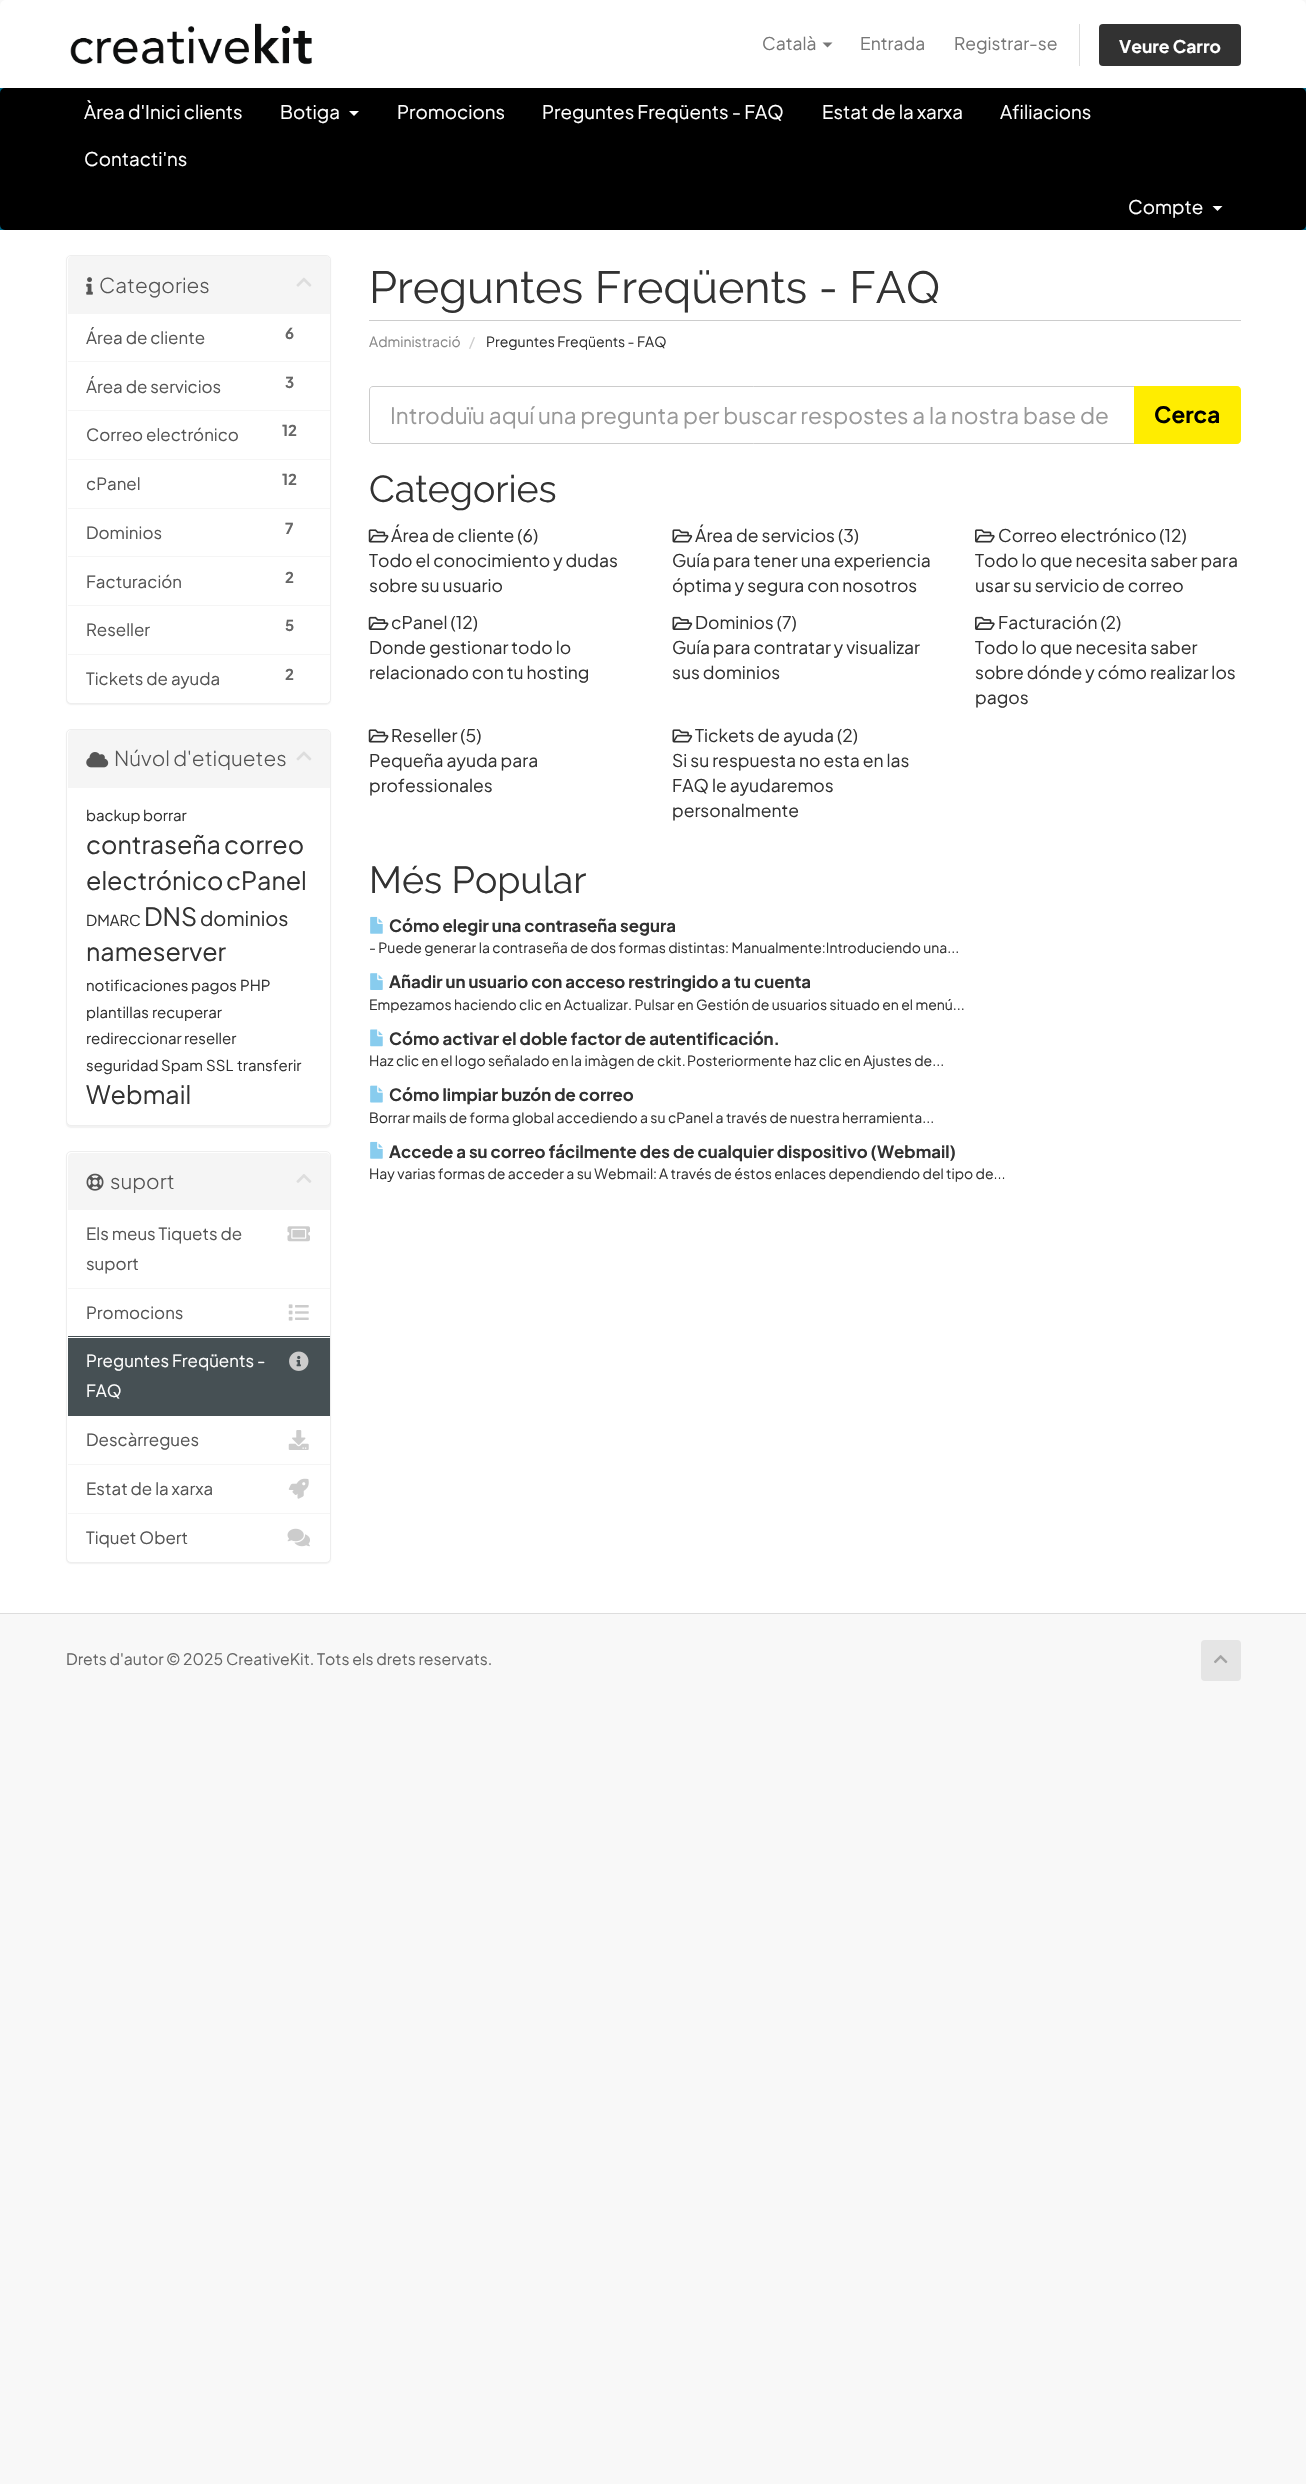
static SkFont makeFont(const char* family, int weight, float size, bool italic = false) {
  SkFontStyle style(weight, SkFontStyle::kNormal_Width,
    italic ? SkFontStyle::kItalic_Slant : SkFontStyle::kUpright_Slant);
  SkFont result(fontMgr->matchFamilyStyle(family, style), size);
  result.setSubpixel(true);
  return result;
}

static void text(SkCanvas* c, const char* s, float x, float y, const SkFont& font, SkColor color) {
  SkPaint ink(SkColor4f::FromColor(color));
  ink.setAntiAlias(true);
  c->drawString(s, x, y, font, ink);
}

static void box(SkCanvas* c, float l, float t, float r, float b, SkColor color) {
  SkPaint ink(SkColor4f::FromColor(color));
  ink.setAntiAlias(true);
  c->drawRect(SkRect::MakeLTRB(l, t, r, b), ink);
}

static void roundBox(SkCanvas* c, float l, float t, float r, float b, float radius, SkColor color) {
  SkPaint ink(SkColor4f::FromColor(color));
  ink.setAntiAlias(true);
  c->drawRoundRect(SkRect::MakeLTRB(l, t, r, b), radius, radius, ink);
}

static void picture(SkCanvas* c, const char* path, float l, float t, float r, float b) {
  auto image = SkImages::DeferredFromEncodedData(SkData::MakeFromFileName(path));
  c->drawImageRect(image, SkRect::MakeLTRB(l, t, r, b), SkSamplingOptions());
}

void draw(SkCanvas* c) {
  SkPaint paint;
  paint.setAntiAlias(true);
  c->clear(0xfff8f8f8);
  paint.setColor(0xffffffff);
  c->drawPath(SkPathBuilder().moveTo(6, 0).lineTo(1300, 0).cubicTo(1303.5f, 0, 1306, 2.5f, 1306, 6).lineTo(1306, 88).lineTo(0, 88).lineTo(0, 6).cubicTo(0, 2.5f, 2.5f, 0, 6, 0).close().detach(), paint);
  picture(c, "img_01.png", 70, 23, 312, 65);
  SkFont face1 = makeFont("Plus Jakarta Sans", 400, 17.5f);
  text(c, "Català", 762, 50, face1, 0xff777777);
  paint.setColor(0xff777777);
  c->drawPath(SkPathBuilder().moveTo(822.5f, 42.5f).lineTo(832.5f, 42.5f).lineTo(827.5f, 47.5f).close().detach(), paint);
  text(c, "Entrada", 860, 50, face1, 0xff777777);
  text(c, "Registrar-se", 954, 50, face1, 0xff777777);
  box(c, 1079, 24, 1080, 66, 0xffdddddd);
  roundBox(c, 1099, 24, 1241, 66, 4, 0xff323232);
  SkFont face2 = makeFont("Plus Jakarta Sans", 700, 17.5f);
  text(c, "Veure Carro", 1119, 53, face2, 0xffffffff);
  box(c, 0, 88, 1306, 230, 0xff006687);
  roundBox(c, 0, 88, 1306, 230, 5, 0xff000000);
  SkFont face3 = makeFont("Plus Jakarta Sans", 400, 18.75f);
  text(c, "Àrea d'Inici clients", 84, 119, face3, 0xffffffff);
  text(c, "Botiga", 280, 119, face3, 0xffffffff);
  paint.setColor(0xffffffff);
  c->drawPath(SkPathBuilder().moveTo(349, 111).lineTo(359, 111).lineTo(354, 116).close().detach(), paint);
  text(c, "Promocions", 397, 119, face3, 0xffffffff);
  text(c, "Preguntes Freqüents - FAQ", 542, 119, face3, 0xffffffff);
  text(c, "Estat de la xarxa", 822, 119, face3, 0xffffffff);
  text(c, "Afiliacions", 1000, 119, face3, 0xffffffff);
  text(c, "Contacti'ns", 84, 166, face3, 0xffffffff);
  text(c, "Compte", 1128, 214, face3, 0xffffffff);
  c->drawPath(SkPathBuilder().moveTo(1212.5f, 206).lineTo(1222.5f, 206).lineTo(1217.5f, 211).close().detach(), paint);
  box(c, 0, 230, 1306, 1613, 0xffffffff);
  paint.setColor(0x0d000000);
  paint.setMaskFilter(SkMaskFilter::MakeBlur(kNormal_SkBlurStyle, 0.5f));
  c->drawRoundRect(SkRect::MakeLTRB(66, 256, 331, 705), 5, 5, paint);
  paint.setMaskFilter(nullptr);
  paint.setColor(0xffffffff);
  c->drawRoundRect(SkRect::MakeLTRB(66.5f, 255.5f, 330.5f, 703.5f), 4.5f, 4.5f, paint);
  paint.setStyle(SkPaint::kStroke_Style);
  paint.setStrokeWidth(1);
  paint.setColor(0xffeeeeee);
  c->drawRoundRect(SkRect::MakeLTRB(66.5f, 255.5f, 330.5f, 703.5f), 4.5f, 4.5f, paint);
  paint.setStyle(SkPaint::kFill_Style);
  paint.setColor(0xfff5f5f5);
  c->drawPath(SkPathBuilder().moveTo(72, 256).lineTo(326, 256).cubicTo(328, 256, 330, 258, 330, 260).lineTo(330, 314).lineTo(68, 314).lineTo(68, 260).cubicTo(68, 258, 70, 256, 72, 256).close().detach(), paint);
  picture(c, "img_02.png", 86, 277, 93, 295);
  SkFont face4 = makeFont("Plus Jakarta Sans", 300, 20.6f);
  text(c, "Categories", 99, 293, face4, 0xff555555);
  picture(c, "img_03.png", 296, 277, 312, 287);
  box(c, 68, 361, 330, 362, 0xfff5f5f5);
  SkFont face5 = makeFont("Plus Jakarta Sans", 400, 16.9f);
  text(c, "Área de cliente", 86, 344, face5, 0xff555555);
  SkFont face6 = makeFont("Plus Jakarta Sans", 700, 15);
  text(c, "6", 285, 339, face6, 0xff666666);
  box(c, 68, 410, 330, 411, 0xfff5f5f5);
  text(c, "Área de servicios", 86, 393, face5, 0xff555555);
  text(c, "3", 285, 388, face6, 0xff666666);
  box(c, 68, 459, 330, 460, 0xfff5f5f5);
  text(c, "Correo electrónico", 86, 441, face5, 0xff555555);
  text(c, "12", 282, 436, face6, 0xff666666);
  box(c, 68, 508, 330, 509, 0xfff5f5f5);
  text(c, "cPanel", 86, 490, face5, 0xff555555);
  text(c, "12", 282, 485, face6, 0xff666666);
  box(c, 68, 556, 330, 557, 0xfff5f5f5);
  text(c, "Dominios", 86, 539, face5, 0xff555555);
  text(c, "7", 285, 534, face6, 0xff666666);
  box(c, 68, 605, 330, 606, 0xfff5f5f5);
  text(c, "Facturación", 86, 588, face5, 0xff555555);
  text(c, "2", 285, 583, face6, 0xff666666);
  text(c, "Reseller", 86, 636, face5, 0xff555555);
  text(c, "5", 285, 631, face6, 0xff666666);
  paint.setColor(0xffffffff);
  c->drawPath(SkPathBuilder().moveTo(68, 654).lineTo(330, 654).lineTo(330, 699).cubicTo(330, 701, 328, 703, 326, 703).lineTo(72, 703).cubicTo(70, 703, 68, 701, 68, 699).close().detach(), paint);
  box(c, 68, 654, 330, 655, 0xfff5f5f5);
  text(c, "Tickets de ayuda", 86, 685, face5, 0xff555555);
  text(c, "2", 285, 680, face6, 0xff666666);
  box(c, 369, 320, 1241, 321, 0xffcccccc);
  SkFont face7 = makeFont("Raleway", 400, 45);
  text(c, "Preguntes Freqüents - FAQ", 369, 303, face7, 0xff323232);
  SkFont face8 = makeFont("Plus Jakarta Sans", 400, 14);
  text(c, "Administració", 369, 347, face8, 0xff888888);
  text(c, "/", 469, 347, face8, 0xffcccccc);
  text(c, "Preguntes Freqüents - FAQ", 486, 347, face8, 0xff323232);
  paint.setColor(0x0d000000);
  paint.setMaskFilter(SkMaskFilter::MakeBlur(kNormal_SkBlurStyle, 0.5f));
  c->drawRoundRect(SkRect::MakeLTRB(66, 730, 331, 1128), 5, 5, paint);
  paint.setMaskFilter(nullptr);
  paint.setColor(0xffffffff);
  c->drawRoundRect(SkRect::MakeLTRB(66.5f, 729.5f, 330.5f, 1125.5f), 4.5f, 4.5f, paint);
  paint.setStyle(SkPaint::kStroke_Style);
  paint.setColor(0xffeeeeee);
  c->drawRoundRect(SkRect::MakeLTRB(66.5f, 729.5f, 330.5f, 1125.5f), 4.5f, 4.5f, paint);
  paint.setStyle(SkPaint::kFill_Style);
  paint.setColor(0xfff5f5f5);
  c->drawPath(SkPathBuilder().moveTo(72, 730).lineTo(326, 730).cubicTo(328, 730, 330, 732, 330, 734).lineTo(330, 788).lineTo(68, 788).lineTo(68, 734).cubicTo(68, 732, 70, 730, 72, 730).close().detach(), paint);
  picture(c, "img_04.png", 86, 752, 109, 768);
  text(c, "Núvol d'etiquetes", 114, 766, face4, 0xff555555);
  picture(c, "img_05.png", 296, 751, 312, 761);
  SkFont face9 = makeFont("Plus Jakarta Sans", 400, 15);
  text(c, "backup", 86, 821, face9, 0xff323232);
  text(c, "borrar", 143, 821, face9, 0xff323232);
  SkFont face10 = makeFont("Plus Jakarta Sans", 400, 25);
  text(c, "contraseña", 86, 854, face10, 0xff323232);
  text(c, "correo", 224, 854, face10, 0xff323232);
  text(c, "electrónico", 86, 890, face10, 0xff323232);
  text(c, "cPanel", 226, 890, face10, 0xff323232);
  text(c, "DMARC", 86, 926, face9, 0xff323232);
  text(c, "DNS", 144, 926, face10, 0xff323232);
  SkFont face11 = makeFont("Plus Jakarta Sans", 400, 20);
  text(c, "dominios", 200, 926, face11, 0xff323232);
  text(c, "nameserver", 86, 961, face10, 0xff323232);
  text(c, "notificaciones", 86, 991, face9, 0xff323232);
  text(c, "pagos", 191, 991, face9, 0xff323232);
  text(c, "PHP", 240, 991, face9, 0xff323232);
  text(c, "plantillas", 86, 1018, face9, 0xff323232);
  text(c, "recuperar", 152, 1018, face9, 0xff323232);
  text(c, "redireccionar", 86, 1044, face9, 0xff323232);
  text(c, "reseller", 184, 1044, face9, 0xff323232);
  text(c, "seguridad", 86, 1071, face9, 0xff323232);
  text(c, "Spam", 161, 1071, face9, 0xff323232);
  text(c, "SSL", 206, 1071, face9, 0xff323232);
  text(c, "transferir", 237, 1071, face9, 0xff323232);
  text(c, "Webmail", 86, 1104, face10, 0xff323232);
  paint.setColor(0x0d000000);
  paint.setMaskFilter(SkMaskFilter::MakeBlur(kNormal_SkBlurStyle, 0.5f));
  c->drawRoundRect(SkRect::MakeLTRB(66, 1153, 331, 1564), 5, 5, paint);
  paint.setMaskFilter(nullptr);
  paint.setColor(0xffffffff);
  c->drawRoundRect(SkRect::MakeLTRB(66.5f, 1151.5f, 330.5f, 1562.5f), 4.5f, 4.5f, paint);
  paint.setStyle(SkPaint::kStroke_Style);
  paint.setColor(0xffeeeeee);
  c->drawRoundRect(SkRect::MakeLTRB(66.5f, 1151.5f, 330.5f, 1562.5f), 4.5f, 4.5f, paint);
  paint.setStyle(SkPaint::kFill_Style);
  paint.setColor(0xfff5f5f5);
  c->drawPath(SkPathBuilder().moveTo(72, 1153).lineTo(326, 1153).cubicTo(328, 1153, 330, 1155, 330, 1157).lineTo(330, 1210).lineTo(68, 1210).lineTo(68, 1157).cubicTo(68, 1155, 70, 1153, 72, 1153).close().detach(), paint);
  picture(c, "img_06.png", 86, 1173, 104, 1191);
  text(c, "suport", 110, 1189, face4, 0xff555555);
  picture(c, "img_07.png", 296, 1174, 312, 1183);
  box(c, 68, 1288, 330, 1289, 0xfff5f5f5);
  text(c, "Els meus Tiquets de", 86, 1240, face5, 0xff555555);
  picture(c, "img_08.png", 287, 1226, 310, 1242);
  text(c, "suport", 86, 1270, face5, 0xff555555);
  text(c, "Promocions", 86, 1319, face5, 0xff555555);
  picture(c, "img_09.png", 288, 1304, 309, 1321);
  box(c, 68, 1338, 330, 1416, 0xff465054);
  box(c, 68, 1336, 330, 1337, 0xff465054);
  text(c, "Preguntes Freqüents -", 86, 1367, face5, 0xffffffff);
  picture(c, "img_10.png", 289, 1351, 309, 1371);
  text(c, "FAQ", 86, 1397, face5, 0xffffffff);
  box(c, 68, 1464, 330, 1465, 0xfff5f5f5);
  text(c, "Descàrregues", 86, 1446, face5, 0xff555555);
  picture(c, "img_11.png", 288, 1430, 309, 1450);
  text(c, "Estat de la xarxa", 86, 1495, face5, 0xff555555);
  picture(c, "img_12.png", 288, 1478, 309, 1499);
  box(c, 68, 1513, 330, 1514, 0xfff5f5f5);
  text(c, "Tiquet Obert", 86, 1544, face5, 0xff555555);
  picture(c, "img_13.png", 287, 1528, 310, 1547);
  paint.setStyle(SkPaint::kStroke_Style);
  paint.setColor(0xffcccccc);
  c->drawPath(SkPathBuilder().moveTo(373, 386.5f).lineTo(1134.5f, 386.5f).lineTo(1134.5f, 443.5f).lineTo(373, 443.5f).cubicTo(371, 443.5f, 369.5f, 442, 369.5f, 440).lineTo(369.5f, 390).cubicTo(369.5f, 388, 371, 386.5f, 373, 386.5f).close().detach(), paint);
  SkFont face12 = makeFont("Plus Jakarta Sans", 400, 22.5f);
  text(c, "Introduïu aquí una pregunta per buscar respostes a la nostra base de", 390, 424, face12, 0xff999999);
  paint.setStyle(SkPaint::kFill_Style);
  paint.setColor(0xffffed00);
  c->drawPath(SkPathBuilder().moveTo(1134, 386).lineTo(1237, 386).cubicTo(1239, 386, 1241, 388, 1241, 390).lineTo(1241, 440).cubicTo(1241, 442, 1239, 444, 1237, 444).lineTo(1134, 444).close().detach(), paint);
  SkFont face13 = makeFont("Plus Jakarta Sans", 700, 22.5f);
  text(c, "Cerca", 1154, 423, face13, 0xff000000);
  SkFont face14 = makeFont("Raleway", 400, 37.5f);
  text(c, "Categories", 369, 502, face14, 0xff323232);
  picture(c, "img_14.png", 368, 529, 389, 543);
  text(c, "Área de cliente (6)", 391, 542, face1, 0xff323232);
  text(c, "Todo el conocimiento y dudas", 369, 567, face1, 0xff323232);
  text(c, "sobre su usuario", 369, 592, face1, 0xff323232);
  picture(c, "img_15.png", 672, 529, 693, 543);
  text(c, "Área de servicios (3)", 695, 542, face1, 0xff323232);
  text(c, "Guía para tener una experiencia", 672, 567, face1, 0xff323232);
  text(c, "óptima y segura con nosotros", 672, 592, face1, 0xff323232);
  picture(c, "img_16.png", 975, 529, 995, 543);
  text(c, "Correo electrónico (12)", 998, 542, face1, 0xff323232);
  text(c, "Todo lo que necesita saber para", 975, 567, face1, 0xff323232);
  text(c, "usar su servicio de correo", 975, 592, face1, 0xff323232);
  picture(c, "img_17.png", 368, 616, 389, 630);
  text(c, "cPanel (12)", 391, 629, face1, 0xff323232);
  text(c, "Donde gestionar todo lo", 369, 654, face1, 0xff323232);
  text(c, "relacionado con tu hosting", 369, 679, face1, 0xff323232);
  picture(c, "img_18.png", 672, 616, 693, 630);
  text(c, "Dominios (7)", 695, 629, face1, 0xff323232);
  text(c, "Guía para contratar y visualizar", 672, 654, face1, 0xff323232);
  text(c, "sus dominios", 672, 679, face1, 0xff323232);
  picture(c, "img_19.png", 975, 616, 995, 630);
  text(c, "Facturación (2)", 998, 629, face1, 0xff323232);
  text(c, "Todo lo que necesita saber", 975, 654, face1, 0xff323232);
  text(c, "sobre dónde y cómo realizar los", 975, 679, face1, 0xff323232);
  text(c, "pagos", 975, 704, face1, 0xff323232);
  picture(c, "img_14.png", 368, 729, 389, 743);
  text(c, "Reseller (5)", 391, 742, face1, 0xff323232);
  text(c, "Pequeña ayuda para", 369, 767, face1, 0xff323232);
  text(c, "professionales", 369, 792, face1, 0xff323232);
  picture(c, "img_15.png", 672, 729, 693, 743);
  text(c, "Tickets de ayuda (2)", 695, 742, face1, 0xff323232);
  text(c, "Si su respuesta no esta en las", 672, 767, face1, 0xff323232);
  text(c, "FAQ le ayudaremos", 672, 792, face1, 0xff323232);
  text(c, "personalmente", 672, 817, face1, 0xff323232);
  text(c, "Més Popular", 369, 893, face14, 0xff323232);
  picture(c, "img_20.png", 370, 916, 383, 934);
  SkFont face15 = makeFont("Plus Jakarta Sans", 700, 16.8f);
  text(c, "Cómo elegir una contraseña segura", 389, 932, face15, 0xff323232);
  text(c, "- Puede generar la contraseña de dos formas distintas: Manualmente:Introduciendo una...", 369, 953, face8, 0xff323232);
  picture(c, "img_21.png", 370, 973, 383, 990);
  text(c, "Añadir un usuario con acceso restringido a tu cuenta", 389, 988, face15, 0xff323232);
  text(c, "Empezamos haciendo clic en Actualizar. Pulsar en Gestión de usuarios situado en el menú...", 369, 1010, face8, 0xff323232);
  picture(c, "img_22.png", 370, 1029, 383, 1047);
  text(c, "Cómo activar el doble factor de autentificación.", 389, 1045, face15, 0xff323232);
  text(c, "Haz clic en el logo señalado en la imàgen de ckit.", 369, 1066, face8, 0xff323232);
  text(c, "Posteriormente haz clic en Ajustes de...", 687, 1066, face8, 0xff323232);
  picture(c, "img_23.png", 370, 1085, 383, 1103);
  text(c, "Cómo limpiar buzón de correo", 389, 1101, face15, 0xff323232);
  text(c, "Borrar mails de forma global accediendo a su cPanel a través de nuestra herramienta...", 369, 1123, face8, 0xff323232);
  picture(c, "img_20.png", 370, 1141, 383, 1159);
  text(c, "Accede a su correo fácilmente des de cualquier dispositivo (Webmail)", 389, 1158, face15, 0xff323232);
  text(c, "Hay varias formas de acceder a su Webmail:", 369, 1179, face8, 0xff323232);
  text(c, "A través de éstos enlaces dependiendo del tipo de...", 659, 1179, face8, 0xff323232);
  box(c, 0, 1613, 1306, 1614, 0xffdddddd);
  SkFont face16 = makeFont("Plus Jakarta Sans", 400, 15.75f);
  text(c, "Drets d'autor © 2025 CreativeKit. Tots els drets reservats.", 66, 1665, face16, 0xff666666);
  roundBox(c, 1201, 1640, 1241, 1681, 4, 0xffe5e5e5);
  picture(c, "img_24.png", 1214, 1655, 1228, 1664);
}
